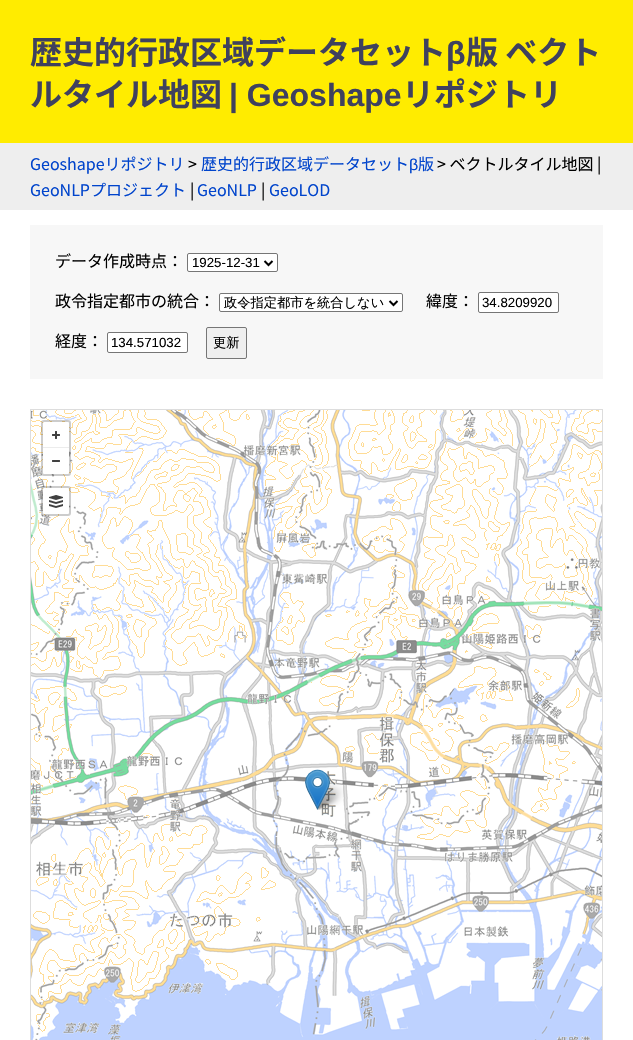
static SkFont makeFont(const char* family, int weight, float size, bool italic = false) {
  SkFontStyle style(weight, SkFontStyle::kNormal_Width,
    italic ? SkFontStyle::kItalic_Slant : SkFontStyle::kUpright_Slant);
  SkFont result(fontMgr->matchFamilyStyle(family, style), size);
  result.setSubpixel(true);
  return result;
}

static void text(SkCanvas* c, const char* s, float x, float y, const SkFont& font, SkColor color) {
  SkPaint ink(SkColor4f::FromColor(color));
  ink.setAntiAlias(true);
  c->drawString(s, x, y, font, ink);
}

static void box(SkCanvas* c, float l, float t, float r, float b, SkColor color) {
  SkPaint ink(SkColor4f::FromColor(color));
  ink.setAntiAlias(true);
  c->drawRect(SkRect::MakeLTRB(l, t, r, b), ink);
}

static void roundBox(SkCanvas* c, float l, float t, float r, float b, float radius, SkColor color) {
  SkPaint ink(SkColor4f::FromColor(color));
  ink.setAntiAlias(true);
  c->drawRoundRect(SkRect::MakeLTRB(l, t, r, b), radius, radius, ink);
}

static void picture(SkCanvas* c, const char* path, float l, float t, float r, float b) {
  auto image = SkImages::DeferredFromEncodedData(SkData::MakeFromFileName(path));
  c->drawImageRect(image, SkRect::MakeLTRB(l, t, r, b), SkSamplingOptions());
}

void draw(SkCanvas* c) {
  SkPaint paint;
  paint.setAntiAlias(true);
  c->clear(0xffffffff);
  box(c, 0, 0, 633, 143, 0xffffec00);
  SkFont face1 = makeFont("Noto Sans JP", 700, 32);
  text(c, "歴史的行政区域データセット", 30, 64, face1, 0xff3f415e);
  SkFont face2 = makeFont("Liberation Sans", 700, 32);
  text(c, "β", 446, 64, face2, 0xff3f415e);
  text(c, "版 ベクト", 466, 64, face1, 0xff3f415e);
  text(c, "ルタイル地図", 30, 106, face1, 0xff3f415e);
  text(c, "| Geoshape", 229, 106, face2, 0xff3f415e);
  text(c, "リポジトリ", 402, 106, face1, 0xff3f415e);
  box(c, 0, 143, 633, 210, 0xffeeeeee);
  SkFont face3 = makeFont("Noto Sans JP", 400, 16);
  text(c, "Geoshapeリポジトリ", 30, 170, face3, 0xff0044cc);
  text(c, ">", 188, 170, face3, 0xff000000);
  text(c, "歴史的行政区域データセット", 201, 170, face3, 0xff0044cc);
  SkFont face4 = makeFont("Liberation Sans", 400, 16);
  text(c, "β", 409, 170, face4, 0xff0044cc);
  text(c, "版", 418, 170, face3, 0xff0044cc);
  text(c, "> ベクトルタイル地図 |", 437, 170, face3, 0xff000000);
  text(c, "GeoNLPプロジェクト", 30, 196, face3, 0xff0044cc);
  text(c, "|", 190, 196, face3, 0xff000000);
  text(c, "GeoNLP", 197, 196, face3, 0xff0044cc);
  text(c, "|", 261, 196, face3, 0xff000000);
  text(c, "GeoLOD", 269, 196, face3, 0xff0044cc);
  box(c, 30, 225, 603, 379, 0xfff7f7f7);
  text(c, "データ作成時点：", 55, 267, face3, 0xff000000);
  paint.setColor(0xffffffff);
  c->drawRoundRect(SkRect::MakeLTRB(187.5f, 253.5f, 277.5f, 271.5f), 1.5f, 1.5f, paint);
  paint.setStyle(SkPaint::kStroke_Style);
  paint.setStrokeWidth(1);
  paint.setColor(0xff767676);
  c->drawRoundRect(SkRect::MakeLTRB(187.5f, 253.5f, 277.5f, 271.5f), 1.5f, 1.5f, paint);
  paint.setStrokeWidth(2);
  paint.setColor(0xff000000);
  c->drawPath(SkPathBuilder().moveTo(264.5f, 261).lineTo(268.5f, 265).lineTo(272.5f, 261).detach(), paint);
  SkFont face5 = makeFont("Liberation Sans", 400, 13.25f);
  text(c, "1925-12-31", 192, 267, face5, 0xff000000);
  text(c, "政令指定都市の統合：", 55, 307, face3, 0xff000000);
  paint.setStyle(SkPaint::kFill_Style);
  paint.setColor(0xffffffff);
  c->drawRoundRect(SkRect::MakeLTRB(219.5f, 293.5f, 402.5f, 311.5f), 1.5f, 1.5f, paint);
  paint.setStyle(SkPaint::kStroke_Style);
  paint.setStrokeWidth(1);
  paint.setColor(0xff767676);
  c->drawRoundRect(SkRect::MakeLTRB(219.5f, 293.5f, 402.5f, 311.5f), 1.5f, 1.5f, paint);
  paint.setStrokeWidth(2);
  paint.setColor(0xff000000);
  c->drawPath(SkPathBuilder().moveTo(389.5f, 301).lineTo(393.5f, 305).lineTo(397.5f, 301).detach(), paint);
  SkFont face6 = makeFont("WenQuanYi Zen Hei", 500, 13.25f);
  text(c, "政令指定都市を統合しない", 224, 307, face6, 0xff000000);
  text(c, "緯度：", 426, 307, face3, 0xff000000);
  paint.setStyle(SkPaint::kFill_Style);
  paint.setColor(0xffffffff);
  c->drawRoundRect(SkRect::MakeLTRB(478.5f, 292.5f, 558.5f, 312.5f), 1.5f, 1.5f, paint);
  paint.setStyle(SkPaint::kStroke_Style);
  paint.setStrokeWidth(1);
  paint.setColor(0xff767676);
  c->drawRoundRect(SkRect::MakeLTRB(478.5f, 292.5f, 558.5f, 312.5f), 1.5f, 1.5f, paint);
  text(c, "34.8209920", 482, 307, face5, 0xff000000);
  text(c, "経度：", 55, 347, face3, 0xff000000);
  paint.setStyle(SkPaint::kFill_Style);
  paint.setColor(0xffffffff);
  c->drawRoundRect(SkRect::MakeLTRB(107.5f, 332.5f, 187.5f, 352.5f), 1.5f, 1.5f, paint);
  paint.setStyle(SkPaint::kStroke_Style);
  paint.setColor(0xff767676);
  c->drawRoundRect(SkRect::MakeLTRB(107.5f, 332.5f, 187.5f, 352.5f), 1.5f, 1.5f, paint);
  text(c, "134.571032", 111, 347, face5, 0xff000000);
  paint.setStyle(SkPaint::kFill_Style);
  paint.setColor(0xffefefef);
  c->drawRoundRect(SkRect::MakeLTRB(206.5f, 327.5f, 246.5f, 358.5f), 1.5f, 1.5f, paint);
  paint.setStyle(SkPaint::kStroke_Style);
  paint.setColor(0xff767676);
  c->drawRoundRect(SkRect::MakeLTRB(206.5f, 327.5f, 246.5f, 358.5f), 1.5f, 1.5f, paint);
  text(c, "更新", 213, 347, face6, 0xff000000);
  paint.setColor(0xffdddddd);
  c->drawRect(SkRect::MakeLTRB(30.5f, 409.5f, 602.5f, 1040.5f), paint);
  picture(c, "img_01.png", 31, 410, 286, 580);
  picture(c, "img_02.png", 286, 410, 542, 580);
  picture(c, "img_03.png", 542, 410, 602, 580);
  picture(c, "img_04.png", 31, 580, 286, 836);
  picture(c, "img_05.png", 286, 580, 542, 836);
  picture(c, "img_06.png", 542, 580, 602, 836);
  picture(c, "img_07.png", 31, 836, 286, 1040);
  picture(c, "img_08.png", 286, 836, 542, 1040);
  picture(c, "img_09.png", 542, 836, 602, 1040);
  picture(c, "img_11.png", 315, 782, 344, 810);
  picture(c, "img_10.png", 305, 769, 330, 810);
  roundBox(c, 43, 422, 69, 474, 1, 0xffffffff);
  paint.setStrokeWidth(2);
  paint.setColor(0x33000000);
  c->drawRoundRect(SkRect::MakeLTRB(42, 421, 70, 475), 2, 2, paint);
  picture(c, "img_12.png", 52, 431, 60, 439);
  box(c, 43, 447, 69, 448, 0xffececec);
  picture(c, "img_13.png", 52, 460, 60, 462);
  roundBox(c, 43, 488, 69, 514, 1, 0xffffffff);
  c->drawRoundRect(SkRect::MakeLTRB(42, 487, 70, 515), 2, 2, paint);
  picture(c, "img_14.png", 49, 495, 63, 508);
}
